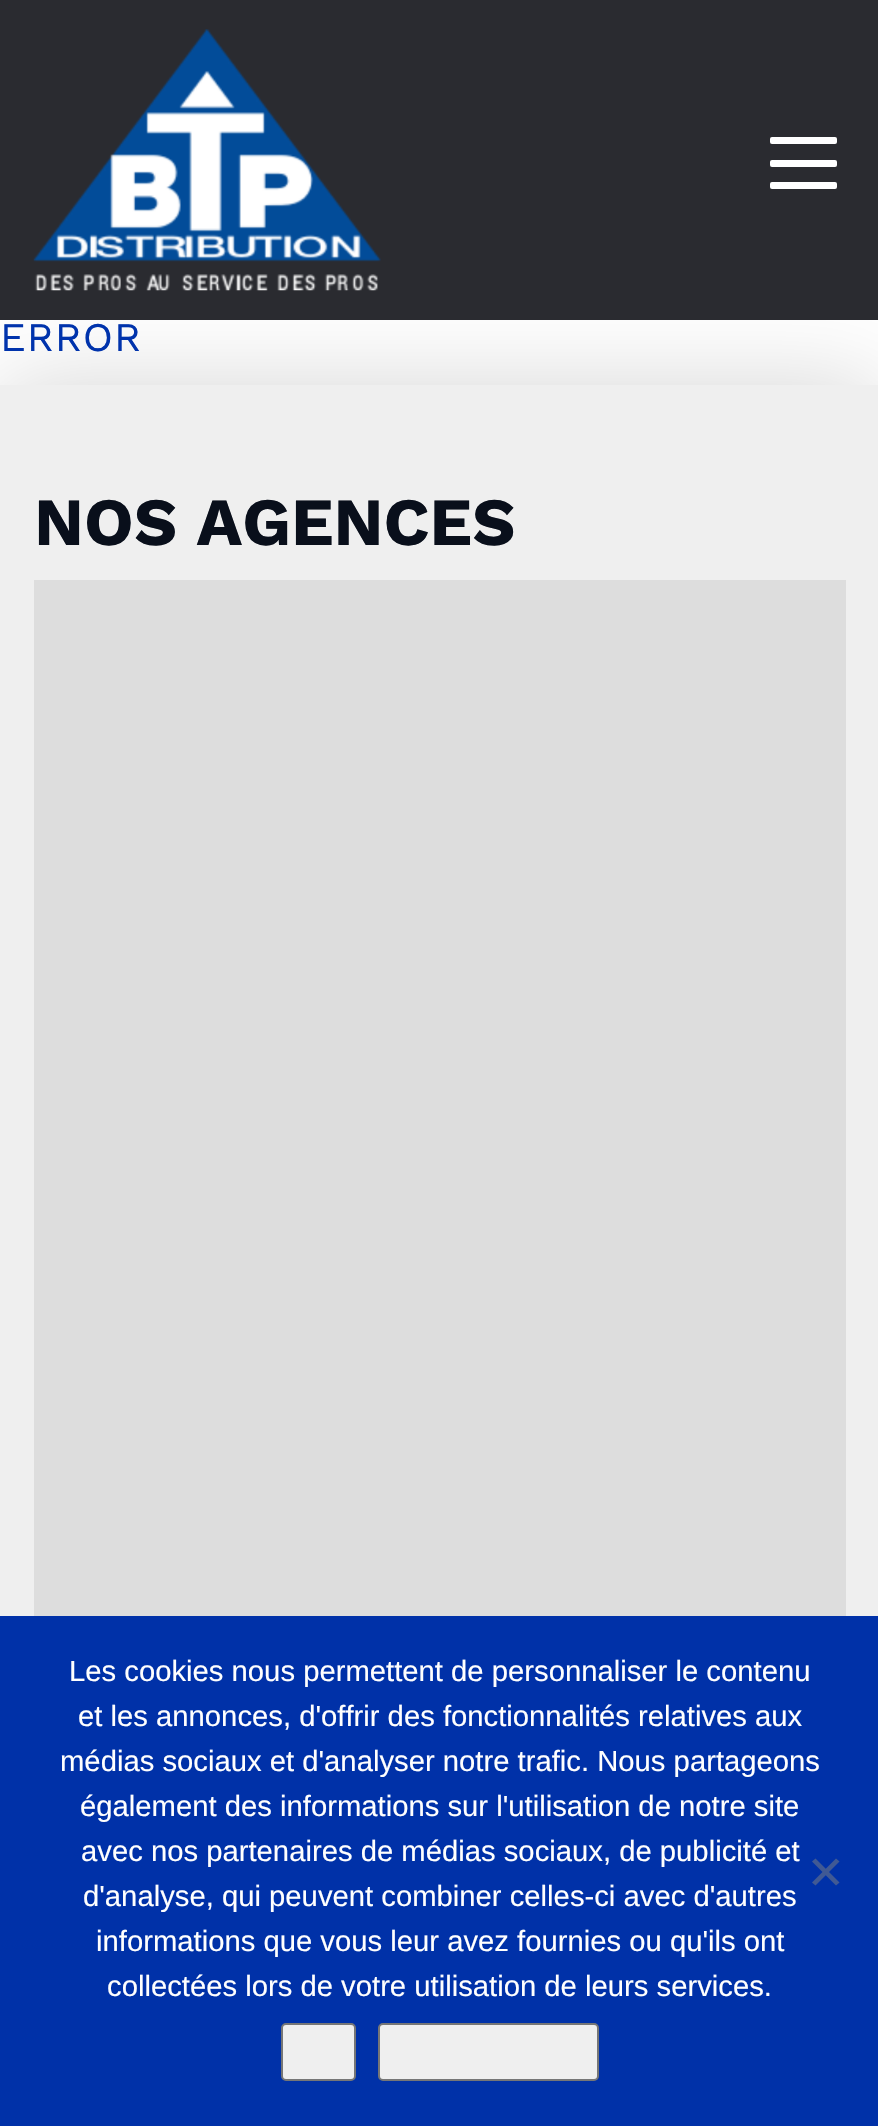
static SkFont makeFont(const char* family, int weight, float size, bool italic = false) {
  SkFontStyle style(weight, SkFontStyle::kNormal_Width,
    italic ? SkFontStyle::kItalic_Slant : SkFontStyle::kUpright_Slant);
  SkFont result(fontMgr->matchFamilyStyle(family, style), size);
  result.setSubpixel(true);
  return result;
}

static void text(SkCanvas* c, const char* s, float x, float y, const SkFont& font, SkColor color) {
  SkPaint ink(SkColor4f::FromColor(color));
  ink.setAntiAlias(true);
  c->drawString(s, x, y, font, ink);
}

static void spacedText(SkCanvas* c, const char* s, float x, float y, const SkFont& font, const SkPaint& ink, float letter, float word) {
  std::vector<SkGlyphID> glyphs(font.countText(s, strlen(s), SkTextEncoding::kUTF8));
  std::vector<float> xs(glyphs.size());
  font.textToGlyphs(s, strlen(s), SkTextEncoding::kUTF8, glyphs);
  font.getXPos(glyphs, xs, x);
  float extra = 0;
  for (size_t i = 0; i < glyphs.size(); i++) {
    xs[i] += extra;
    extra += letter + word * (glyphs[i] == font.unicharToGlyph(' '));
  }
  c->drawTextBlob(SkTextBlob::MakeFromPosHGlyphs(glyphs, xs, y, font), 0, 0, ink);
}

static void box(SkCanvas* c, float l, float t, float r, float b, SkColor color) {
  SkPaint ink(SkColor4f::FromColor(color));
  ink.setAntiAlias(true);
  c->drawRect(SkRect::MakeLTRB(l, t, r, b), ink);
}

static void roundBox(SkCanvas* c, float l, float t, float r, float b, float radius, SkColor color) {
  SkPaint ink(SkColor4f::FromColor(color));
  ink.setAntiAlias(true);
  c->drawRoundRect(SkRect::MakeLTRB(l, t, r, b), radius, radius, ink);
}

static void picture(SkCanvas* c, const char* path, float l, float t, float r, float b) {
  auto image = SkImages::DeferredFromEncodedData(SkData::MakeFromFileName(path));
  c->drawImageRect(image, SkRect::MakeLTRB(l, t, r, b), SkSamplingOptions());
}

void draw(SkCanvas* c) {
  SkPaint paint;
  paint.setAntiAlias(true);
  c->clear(0xffffffff);
  paint.setColor(0x29000000);
  paint.setMaskFilter(SkMaskFilter::MakeBlur(kNormal_SkBlurStyle, 45));
  c->drawRect(SkRect::MakeLTRB(0, 385, 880, 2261), paint);
  paint.setMaskFilter(nullptr);
  box(c, 0, 0, 878, 320, 0xff2a2b30);
  picture(c, "img_01.png", 33, 29, 381, 291);
  roundBox(c, 770, 160, 837, 167, 2, 0xffffffff);
  roundBox(c, 770, 137, 837, 144, 2, 0xffffffff);
  roundBox(c, 770, 182, 837, 189, 2, 0xffffffff);
  SkFont face1 = makeFont("Work Sans", 400, 40.5f);
  paint.setColor(0xff0033ac);
  spacedText(c, "ERROR", 0, 351, face1, paint, 1, 0);
  box(c, 0, 385, 878, 1616, 0xffefefef);
  SkFont face2 = makeFont("Work Sans", 700, 67.5f);
  text(c, "NOS AGENCES", 34, 545, face2, 0xff090f1b);
  box(c, 34, 580, 846, 1616, 0xffdddddd);
  box(c, 0, 1616, 878, 2126, 0xff0031a8);
  SkFont face3 = makeFont("Liberation Sans", 400, 29.25f);
  text(c, "Les cookies nous permettent de personnaliser le contenu", 69, 1681, face3, 0xffffffff);
  text(c, "et les annonces, d'offrir des fonctionnalités relatives aux", 78, 1726, face3, 0xffffffff);
  text(c, "médias sociaux et d'analyser notre trafic. Nous partageons", 60, 1771, face3, 0xffffffff);
  text(c, "également des informations sur l'utilisation de notre site", 80, 1816, face3, 0xffffffff);
  text(c, "avec nos partenaires de médias sociaux, de publicité et", 81, 1861, face3, 0xffffffff);
  text(c, "d'analyse, qui peuvent combiner celles-ci avec d'autres", 83, 1906, face3, 0xffffffff);
  text(c, "informations que vous leur avez fournies ou qu'ils ont", 96, 1951, face3, 0xffffffff);
  text(c, "collectées lors de votre utilisation de leurs services.", 107, 1996, face3, 0xffffffff);
  paint.setColor(0xff405994);
  c->drawPath(SkPathBuilder().moveTo(836, 1858.5f).lineTo(839.5f, 1861.5f).lineTo(815.5f, 1885.5f).lineTo(812, 1882.5f).close().detach(), paint);
  c->drawPath(SkPathBuilder().moveTo(812, 1861.5f).lineTo(815.5f, 1858.5f).lineTo(839.5f, 1882.5f).lineTo(836, 1885.5f).close().detach(), paint);
  paint.setColor(0xffefefef);
  c->drawRoundRect(SkRect::MakeLTRB(282, 2024, 355, 2080), 4, 4, paint);
  paint.setStyle(SkPaint::kStroke_Style);
  paint.setStrokeWidth(2);
  paint.setColor(0xff767676);
  c->drawRoundRect(SkRect::MakeLTRB(282, 2024, 355, 2080), 4, 4, paint);
  paint.setStyle(SkPaint::kFill_Style);
  paint.setColor(0xffefefef);
  c->drawRoundRect(SkRect::MakeLTRB(379, 2024, 598, 2080), 4, 4, paint);
  paint.setStyle(SkPaint::kStroke_Style);
  paint.setColor(0xff767676);
  c->drawRoundRect(SkRect::MakeLTRB(379, 2024, 598, 2080), 4, 4, paint);
}
